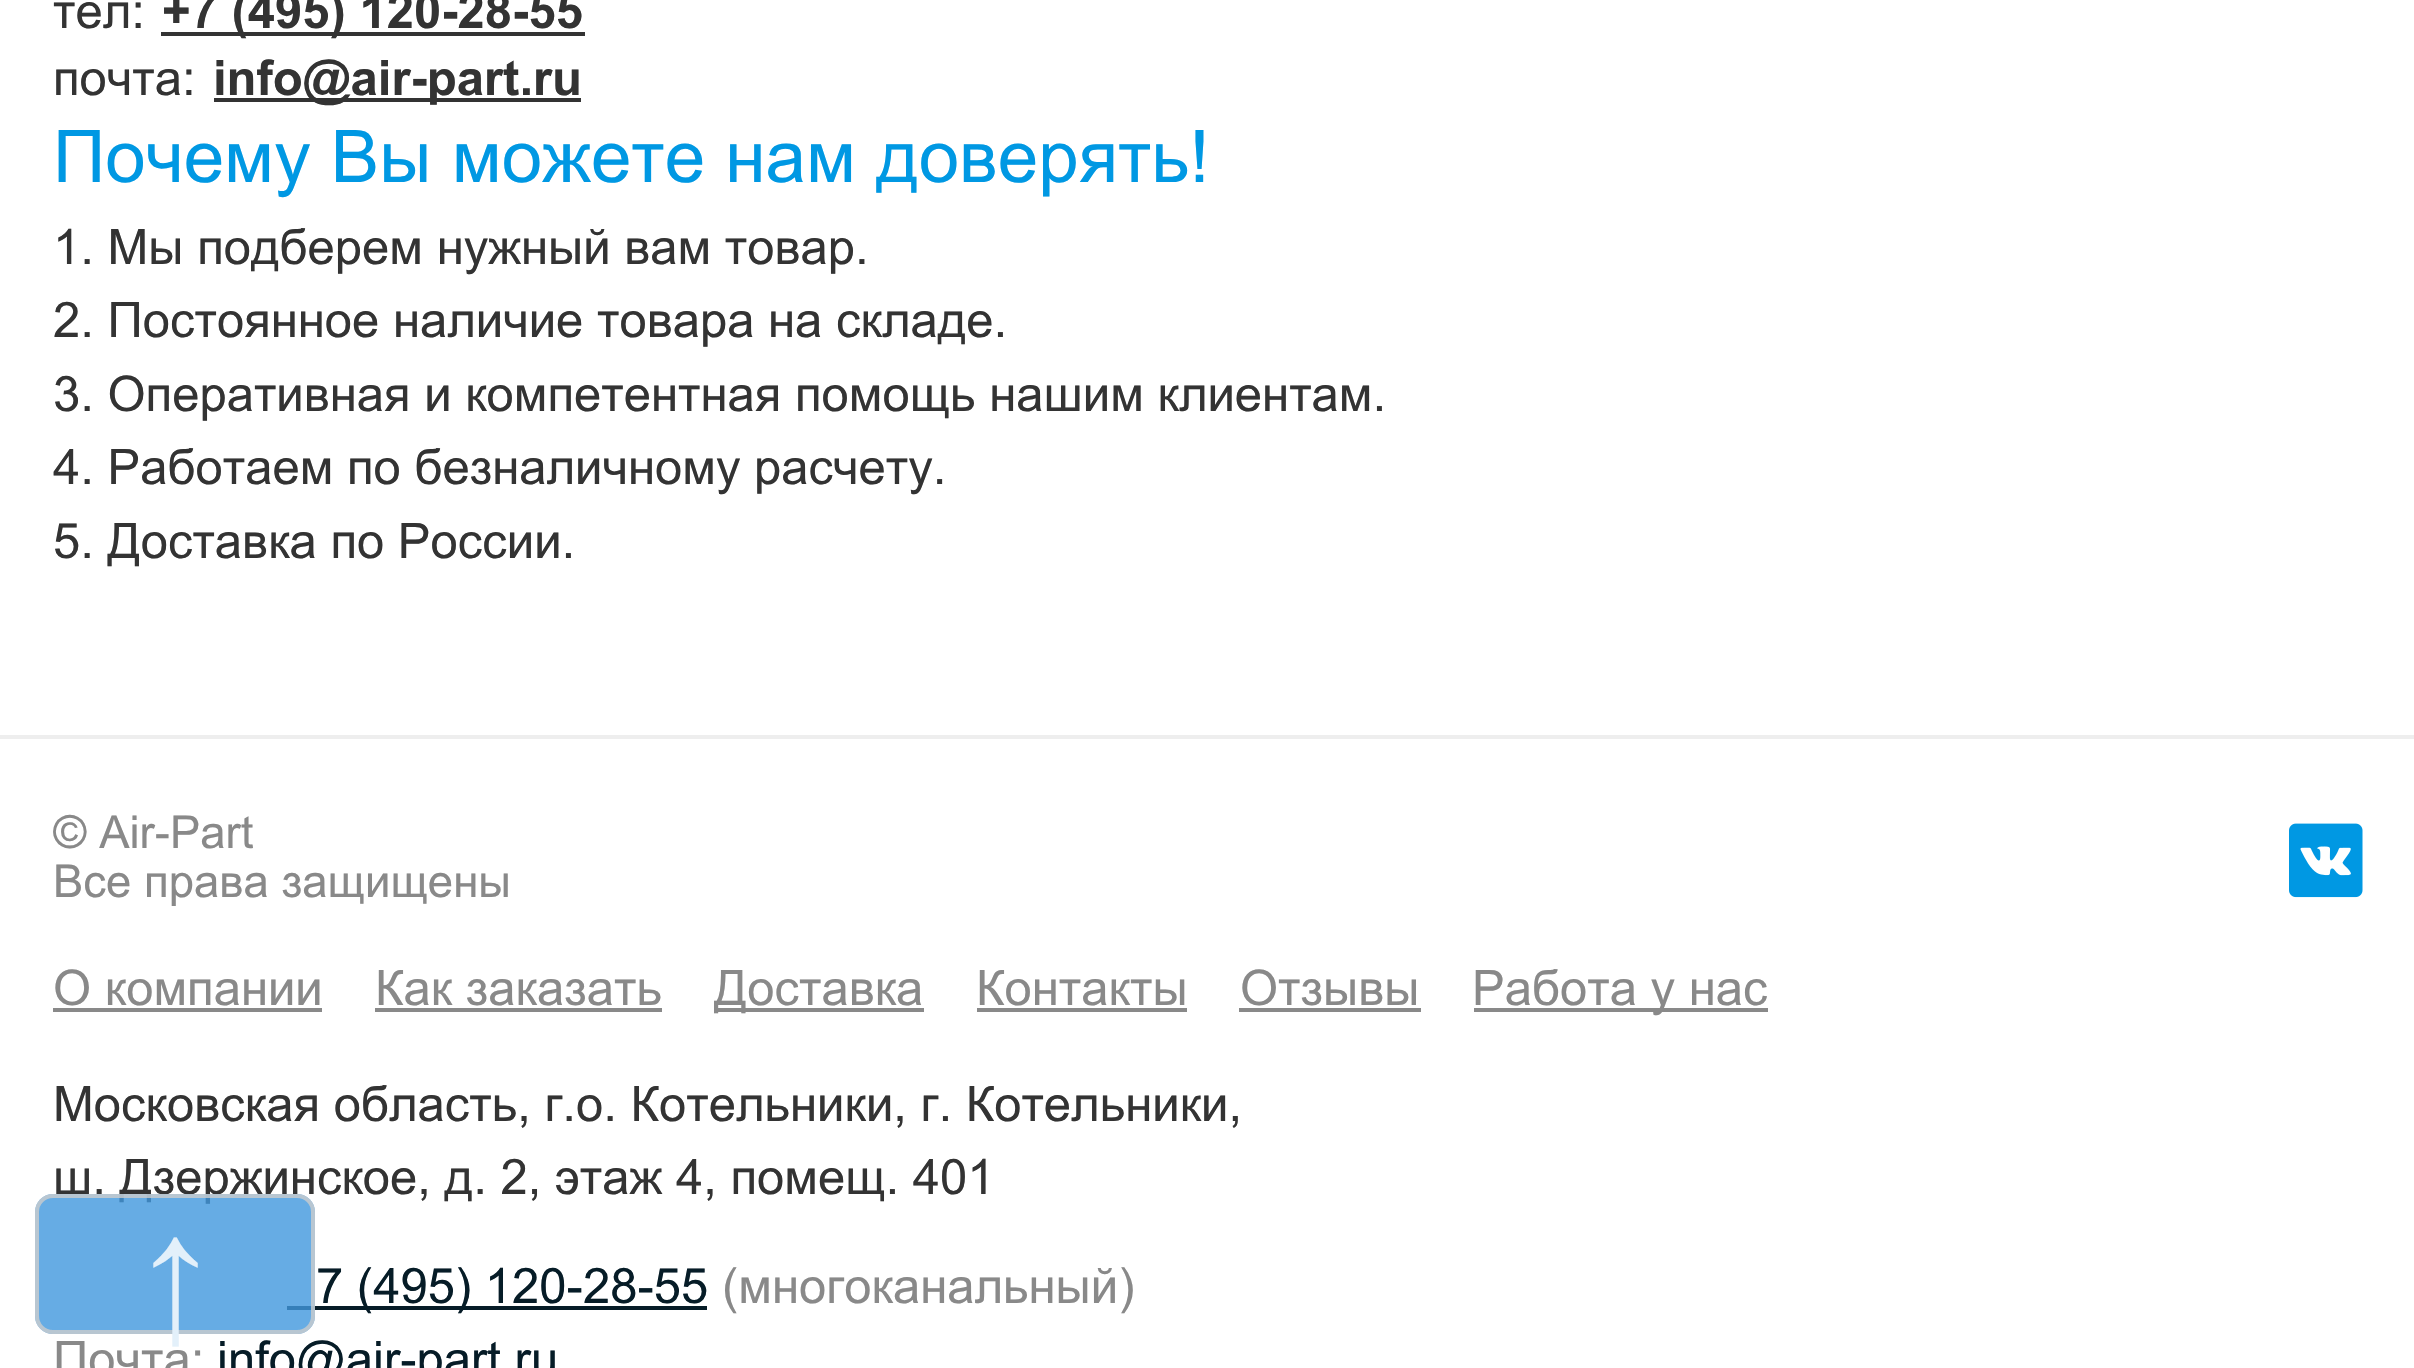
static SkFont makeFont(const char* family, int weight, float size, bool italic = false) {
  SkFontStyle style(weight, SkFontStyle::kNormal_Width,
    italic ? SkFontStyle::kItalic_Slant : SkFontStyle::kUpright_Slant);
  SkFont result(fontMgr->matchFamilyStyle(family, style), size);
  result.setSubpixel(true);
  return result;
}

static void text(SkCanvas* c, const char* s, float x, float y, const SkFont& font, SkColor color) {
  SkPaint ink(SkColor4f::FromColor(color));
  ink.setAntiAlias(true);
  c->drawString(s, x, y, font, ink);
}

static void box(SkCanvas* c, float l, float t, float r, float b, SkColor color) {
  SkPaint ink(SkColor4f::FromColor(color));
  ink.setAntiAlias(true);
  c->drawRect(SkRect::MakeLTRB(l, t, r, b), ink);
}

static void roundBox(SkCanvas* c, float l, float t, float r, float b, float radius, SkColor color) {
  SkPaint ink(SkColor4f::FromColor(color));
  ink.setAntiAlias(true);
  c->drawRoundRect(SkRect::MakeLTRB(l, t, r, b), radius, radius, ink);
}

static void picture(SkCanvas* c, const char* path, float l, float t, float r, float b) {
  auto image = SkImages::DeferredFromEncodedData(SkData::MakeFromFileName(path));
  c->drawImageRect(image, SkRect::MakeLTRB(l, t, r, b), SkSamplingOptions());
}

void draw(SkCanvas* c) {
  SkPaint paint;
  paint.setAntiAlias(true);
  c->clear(0xffffffff);
  SkFont face1 = makeFont("Arial", 400, 49);
  text(c, "тел:", 53, 28, face1, 0xff333333);
  box(c, 161, 32, 585, 36, 0xff333333);
  SkFont face2 = makeFont("Arial", 700, 49);
  text(c, "+7 (495) 120-28-55", 162, 28, face2, 0xff333333);
  text(c, "почта:", 53, 95, face1, 0xff333333);
  box(c, 214, 98, 581, 102, 0xff333333);
  text(c, "info@air-part.ru", 213, 95, face2, 0xff333333);
  SkFont face3 = makeFont("Arial", 400, 72.75f);
  text(c, "Почему Вы можете нам доверять!", 53, 182, face3, 0xff0098e3);
  text(c, "1. Мы подберем нужный вам товар.", 53, 264, face1, 0xff333333);
  text(c, "2. Постоянное наличие товара на складе.", 53, 337, face1, 0xff333333);
  text(c, "3. Оперативная и компетентная помощь нашим клиентам.", 53, 411, face1, 0xff333333);
  text(c, "4. Работаем по безналичному расчету.", 53, 484, face1, 0xff333333);
  text(c, "5. Доставка по России.", 53, 558, face1, 0xff333333);
  text(c, "ш. Дзержинское, д. 2, этаж 4, помещ. 401", 53, 1194, face1, 0xff333333);
  box(c, 287, 1306, 707, 1310, 0xff061c27);
  roundBox(c, 35, 1194, 315, 1334, 18, 0xcc4097dd);
  paint.setStyle(SkPaint::kStroke_Style);
  paint.setStrokeWidth(4);
  paint.setColor(0xcccccccc);
  c->drawRoundRect(SkRect::MakeLTRB(37, 1196, 313, 1332), 16, 16, paint);
  SkFont face4 = makeFont("Arial", 400, 126);
  text(c, "↑", 144, 1320, face4, 0xffe3f0fa);
  box(c, 0, 735, 2414, 739, 0xffeeeeee);
  SkFont face5 = makeFont("Arial", 400, 45.5f);
  text(c, "© Air-Part", 53, 848, face5, 0xff898989);
  text(c, "Все права защищены", 53, 897, face5, 0xff898989);
  picture(c, "img_01.png", 2289, 823, 2363, 898);
  text(c, "О компании", 53, 1005, face1, 0xff898989);
  box(c, 53, 1008, 322, 1012, 0xff898989);
  text(c, "Как заказать", 375, 1005, face1, 0xff898989);
  box(c, 375, 1008, 662, 1012, 0xff898989);
  box(c, 714, 1008, 924, 1012, 0xff898989);
  text(c, "Доставка", 714, 1005, face1, 0xff898989);
  text(c, "Контакты", 976, 1005, face1, 0xff898989);
  box(c, 977, 1008, 1187, 1012, 0xff898989);
  text(c, "Отзывы", 1240, 1005, face1, 0xff898989);
  box(c, 1239, 1008, 1421, 1012, 0xff898989);
  box(c, 1474, 1008, 1768, 1012, 0xff898989);
  text(c, "Работа у нас", 1472, 1005, face1, 0xff898989);
  text(c, "Московская область, г.о. Котельники, г. Котельники,", 53, 1121, face1, 0xff333333);
  text(c, "7 (495) 120-28-55", 316, 1303, face1, 0xff061c27);
  text(c, "(многоканальный)", 722, 1303, face1, 0xff898989);
  text(c, "Почта:", 53, 1376, face1, 0xff898989);
  text(c, "info@air-part.ru", 217, 1376, face1, 0xff061c27);
}
